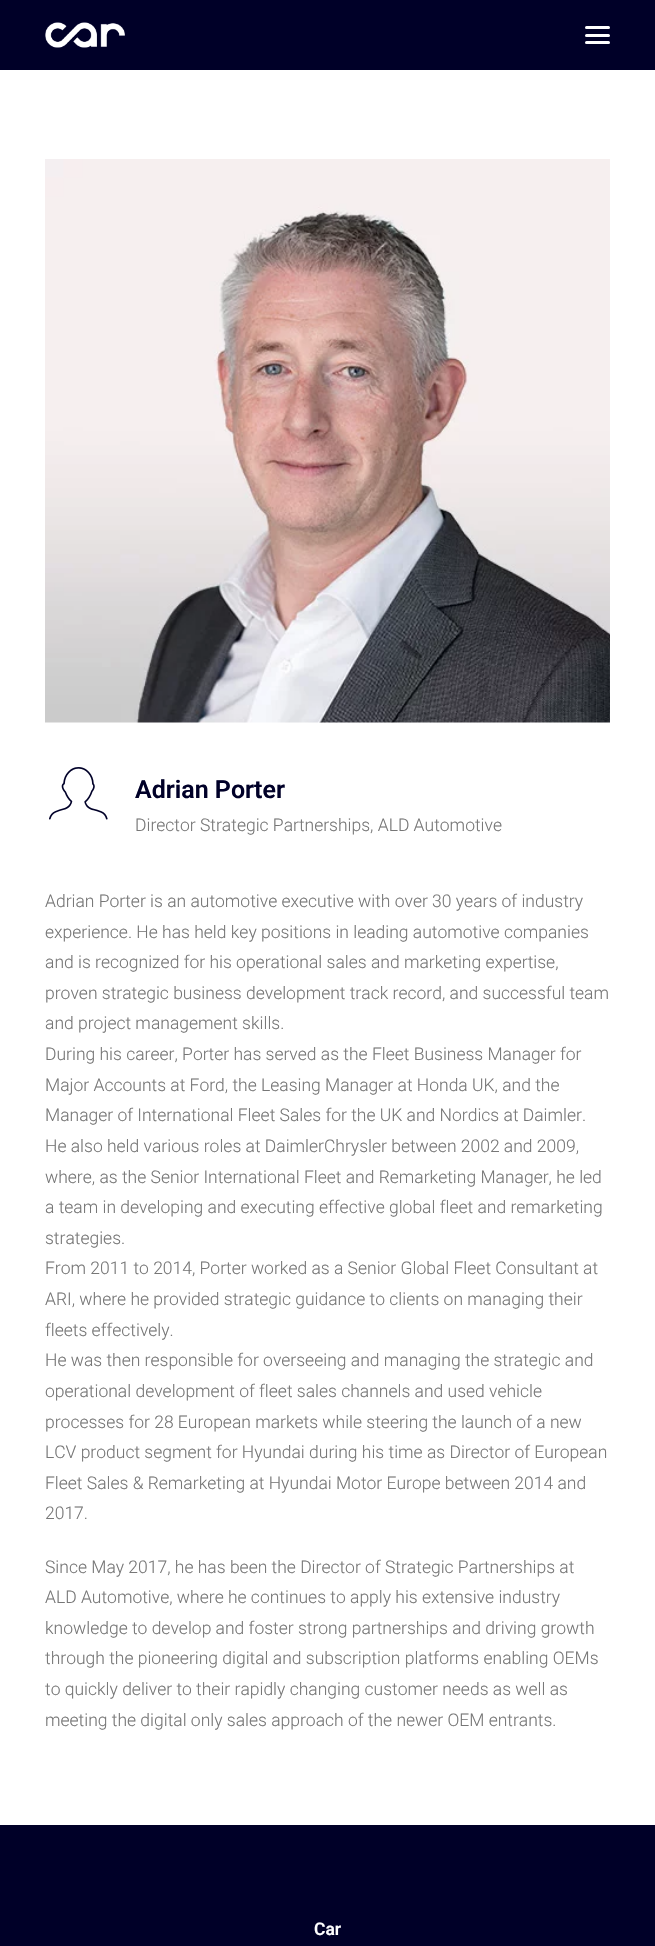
static SkFont makeFont(const char* family, int weight, float size, bool italic = false) {
  SkFontStyle style(weight, SkFontStyle::kNormal_Width,
    italic ? SkFontStyle::kItalic_Slant : SkFontStyle::kUpright_Slant);
  SkFont result(fontMgr->matchFamilyStyle(family, style), size);
  result.setSubpixel(true);
  return result;
}

static void text(SkCanvas* c, const char* s, float x, float y, const SkFont& font, SkColor color) {
  SkPaint ink(SkColor4f::FromColor(color));
  ink.setAntiAlias(true);
  c->drawString(s, x, y, font, ink);
}

static void box(SkCanvas* c, float l, float t, float r, float b, SkColor color) {
  SkPaint ink(SkColor4f::FromColor(color));
  ink.setAntiAlias(true);
  c->drawRect(SkRect::MakeLTRB(l, t, r, b), ink);
}

static void roundBox(SkCanvas* c, float l, float t, float r, float b, float radius, SkColor color) {
  SkPaint ink(SkColor4f::FromColor(color));
  ink.setAntiAlias(true);
  c->drawRoundRect(SkRect::MakeLTRB(l, t, r, b), radius, radius, ink);
}

static void picture(SkCanvas* c, const char* path, float l, float t, float r, float b) {
  auto image = SkImages::DeferredFromEncodedData(SkData::MakeFromFileName(path));
  c->drawImageRect(image, SkRect::MakeLTRB(l, t, r, b), SkSamplingOptions());
}

void draw(SkCanvas* c) {
  SkPaint paint;
  paint.setAntiAlias(true);
  c->clear(0xff000028);
  picture(c, "img_01.png", 45, 22, 125, 48);
  roundBox(c, 585, 34, 610, 37, 1.5f, 0xffffffff);
  roundBox(c, 585, 26, 610, 29, 1.5f, 0xffffffff);
  roundBox(c, 585, 41, 610, 44, 1.5f, 0xffffffff);
  box(c, 0, 70, 655, 1825, 0xffffffff);
  picture(c, "img_02.png", 45, 159, 610, 723);
  picture(c, "img_03.png", 49, 767, 108, 820);
  SkFont face1 = makeFont("Roboto", 600, 25);
  text(c, "Adrian Porter", 135, 798, face1, 0xff000028);
  SkFont face2 = makeFont("Roboto", 300, 17.5f);
  text(c, "Director Strategic Partnerships, ALD Automotive", 135, 831, face2, 0xff777777);
  text(c, "Adrian Porter is an automotive executive with over 30 years of industry", 45, 907, face2, 0xff777777);
  text(c, "experience. He has held key positions in leading automotive companies", 45, 938, face2, 0xff777777);
  text(c, "and is recognized for his operational sales and marketing expertise,", 45, 968, face2, 0xff777777);
  text(c, "proven strategic business development track record, and successful team", 45, 999, face2, 0xff777777);
  text(c, "and project management skills.", 45, 1029, face2, 0xff777777);
  text(c, "During his career, Porter has served as the Fleet Business Manager for", 45, 1060, face2, 0xff777777);
  text(c, "Major Accounts at Ford, the Leasing Manager at Honda UK, and the", 45, 1091, face2, 0xff777777);
  text(c, "Manager of International Fleet Sales for the UK and Nordics at Daimler.", 45, 1121, face2, 0xff777777);
  text(c, "He also held various roles at DaimlerChrysler between 2002 and 2009,", 45, 1152, face2, 0xff777777);
  text(c, "where, as the Senior International Fleet and Remarketing Manager, he led", 45, 1183, face2, 0xff777777);
  text(c, "a team in developing and executing effective global fleet and remarketing", 45, 1213, face2, 0xff777777);
  text(c, "strategies.", 45, 1244, face2, 0xff777777);
  text(c, "From 2011 to 2014, Porter worked as a Senior Global Fleet Consultant at", 45, 1274, face2, 0xff777777);
  text(c, "ARI, where he provided strategic guidance to clients on managing their", 45, 1305, face2, 0xff777777);
  text(c, "fleets effectively.", 45, 1336, face2, 0xff777777);
  text(c, "He was then responsible for overseeing and managing the strategic and", 45, 1366, face2, 0xff777777);
  text(c, "operational development of fleet sales channels and used vehicle", 45, 1397, face2, 0xff777777);
  text(c, "processes for 28 European markets while steering the launch of a new", 45, 1428, face2, 0xff777777);
  text(c, "LCV product segment for Hyundai during his time as Director of European", 45, 1458, face2, 0xff777777);
  text(c, "Fleet Sales & Remarketing at Hyundai Motor Europe between 2014 and", 45, 1489, face2, 0xff777777);
  text(c, "2017.", 45, 1519, face2, 0xff777777);
  text(c, "Since May 2017, he has been the Director of Strategic Partnerships at", 45, 1573, face2, 0xff777777);
  text(c, "ALD Automotive, where he continues to apply his extensive industry", 45, 1603, face2, 0xff777777);
  text(c, "knowledge to develop and foster strong partnerships and driving growth", 45, 1634, face2, 0xff777777);
  text(c, "through the pioneering digital and subscription platforms enabling OEMs", 45, 1664, face2, 0xff777777);
  text(c, "to quickly deliver to their rapidly changing customer needs as well as", 45, 1695, face2, 0xff777777);
  text(c, "meeting the digital only sales approach of the newer OEM entrants.", 45, 1726, face2, 0xff777777);
  SkFont face3 = makeFont("Roboto", 600, 17.5f);
  text(c, "Car", 314, 1935, face3, 0xffffffff);
}
